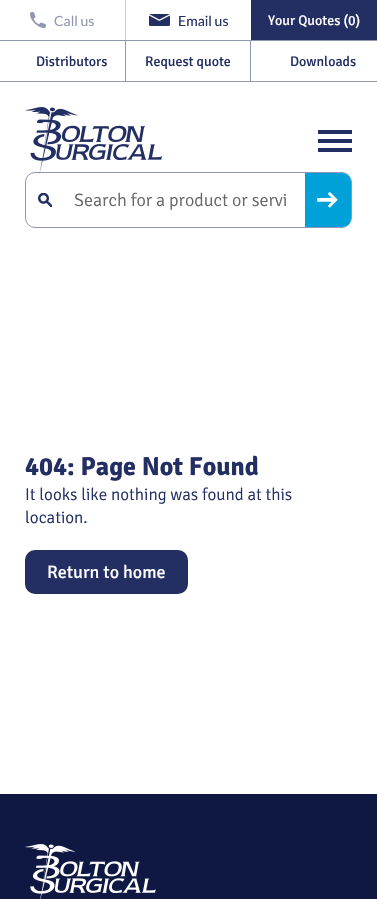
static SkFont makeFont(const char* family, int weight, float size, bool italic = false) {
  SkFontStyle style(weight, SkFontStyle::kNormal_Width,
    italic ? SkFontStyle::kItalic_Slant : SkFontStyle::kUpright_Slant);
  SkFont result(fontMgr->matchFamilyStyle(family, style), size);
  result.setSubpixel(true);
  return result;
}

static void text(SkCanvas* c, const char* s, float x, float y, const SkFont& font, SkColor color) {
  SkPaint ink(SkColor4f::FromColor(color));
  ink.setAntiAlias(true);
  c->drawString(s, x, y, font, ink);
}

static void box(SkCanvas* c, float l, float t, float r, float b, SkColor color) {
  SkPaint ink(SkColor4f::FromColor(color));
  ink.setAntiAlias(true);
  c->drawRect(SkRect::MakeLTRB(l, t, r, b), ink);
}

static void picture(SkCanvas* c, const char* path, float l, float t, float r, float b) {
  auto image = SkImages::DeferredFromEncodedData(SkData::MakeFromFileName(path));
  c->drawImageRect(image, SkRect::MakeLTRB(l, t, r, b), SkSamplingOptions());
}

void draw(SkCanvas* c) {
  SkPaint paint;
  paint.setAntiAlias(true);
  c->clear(0xffffffff);
  box(c, 0, 40, 377, 41, 0xff9197b1);
  box(c, 125, 0, 126, 40, 0xffc8cbd8);
  picture(c, "img_01.png", 30, 12, 46, 28);
  SkFont face1 = makeFont("Lato", 400, 14);
  text(c, "Call us", 54, 26, face1, 0xff9197b1);
  picture(c, "img_02.png", 149, 14, 170, 26);
  text(c, "Email us", 178, 26, face1, 0xff232e63);
  box(c, 251, 0, 377, 40, 0xff232e63);
  SkFont face2 = makeFont("Signika", 400, 14);
  text(c, "Your Quotes (0)", 268, 25, face2, 0xffffffff);
  box(c, 0, 81, 377, 82, 0xff9197b1);
  box(c, 125, 41, 126, 81, 0xff9197b1);
  text(c, "Distributors", 36, 66, face2, 0xff232e63);
  box(c, 250, 41, 251, 81, 0xff9197b1);
  text(c, "Request quote", 145, 66, face2, 0xff232e63);
  text(c, "Downloads", 290, 66, face2, 0xff232e63);
  picture(c, "img_03.png", 25, 107, 163, 174);
  box(c, 318, 130, 352, 134, 0xff232e63);
  box(c, 318, 139, 352, 143, 0xff232e63);
  box(c, 318, 148, 352, 152, 0xff232e63);
  paint.setStyle(SkPaint::kStroke_Style);
  paint.setStrokeWidth(1);
  paint.setColor(0x80232e63);
  c->drawRoundRect(SkRect::MakeLTRB(25.5f, 172.5f, 351.5f, 227.5f), 9.5f, 9.5f, paint);
  picture(c, "img_04.png", 38, 193, 52, 207);
  SkFont face3 = makeFont("Signika", 300, 18);
  text(c, "Search for a product or servi", 74, 206, face3, 0xff666666);
  paint.setStyle(SkPaint::kFill_Style);
  paint.setColor(0xff00a0d8);
  c->drawPath(SkPathBuilder().moveTo(305, 173).lineTo(342, 173).cubicTo(347, 173, 351, 177, 351, 182).lineTo(351, 218).cubicTo(351, 223, 347, 227, 342, 227).lineTo(305, 227).close().detach(), paint);
  picture(c, "img_05.png", 317, 191, 338, 208);
  SkFont face4 = makeFont("Signika", 700, 26);
  text(c, "404: Page Not Found", 25, 475, face4, 0xff232e63);
  SkFont face5 = makeFont("Signika", 300, 17);
  text(c, "It looks like nothing was found at this", 25, 500, face5, 0xff232e63);
  text(c, "location.", 25, 523, face5, 0xff232e63);
  paint.setColor(0xff232e63);
  c->drawRoundRect(SkRect::MakeLTRB(26, 551, 187, 593), 9, 9, paint);
  paint.setStyle(SkPaint::kStroke_Style);
  paint.setStrokeWidth(2);
  c->drawRoundRect(SkRect::MakeLTRB(26, 551, 187, 593), 9, 9, paint);
  SkFont face6 = makeFont("Signika", 400, 18);
  text(c, "Return to home", 47, 578, face6, 0xffffffff);
  box(c, 0, 794, 377, 899, 0xff0f1843);
  picture(c, "img_06.png", 25, 844, 156, 899);
}
